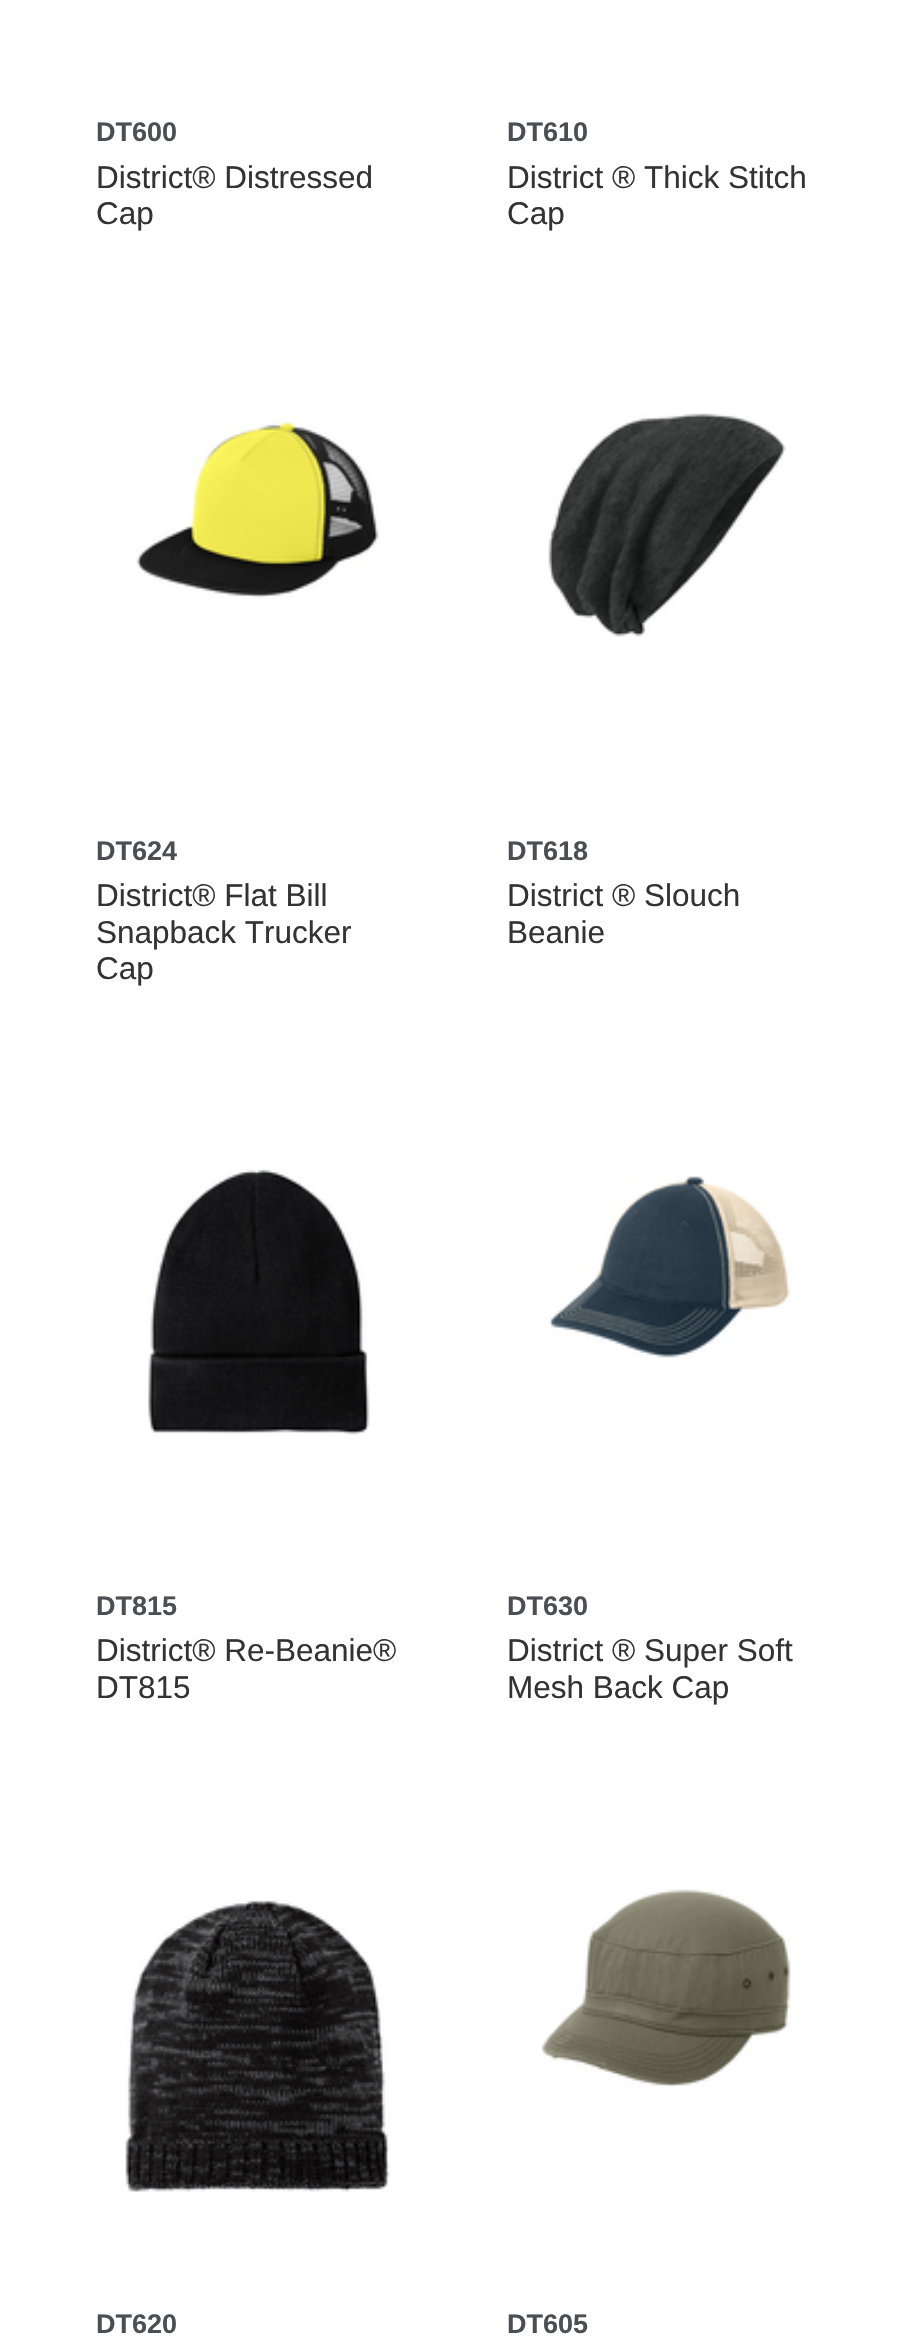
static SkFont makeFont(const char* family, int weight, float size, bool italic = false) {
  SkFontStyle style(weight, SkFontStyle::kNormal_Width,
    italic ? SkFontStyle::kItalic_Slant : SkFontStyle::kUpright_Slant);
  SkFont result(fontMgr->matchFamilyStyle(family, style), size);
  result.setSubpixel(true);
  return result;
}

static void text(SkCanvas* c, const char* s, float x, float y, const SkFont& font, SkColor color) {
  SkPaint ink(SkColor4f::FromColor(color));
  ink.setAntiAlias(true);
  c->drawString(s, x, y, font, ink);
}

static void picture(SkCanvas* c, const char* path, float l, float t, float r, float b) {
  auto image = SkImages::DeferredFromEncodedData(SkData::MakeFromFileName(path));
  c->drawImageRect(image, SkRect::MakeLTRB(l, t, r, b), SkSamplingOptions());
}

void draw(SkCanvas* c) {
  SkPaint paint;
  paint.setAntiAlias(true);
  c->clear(0xffffffff);
  SkFont face1 = makeFont("Liberation Sans", 700, 27);
  text(c, "DT600", 96, 141, face1, 0xff4d4e53);
  SkFont face2 = makeFont("Liberation Sans", 400, 31.5f);
  text(c, "District® Distressed", 96, 188, face2, 0xff333333);
  text(c, "Cap", 96, 224, face2, 0xff333333);
  text(c, "DT610", 507, 141, face1, 0xff4d4e53);
  text(c, "District ® Thick Stitch", 507, 188, face2, 0xff333333);
  text(c, "Cap", 507, 224, face2, 0xff333333);
  picture(c, "img_01.png", 136, 421, 379, 598);
  text(c, "DT624", 96, 860, face1, 0xff4d4e53);
  text(c, "District® Flat Bill", 96, 906, face2, 0xff333333);
  text(c, "Snapback Trucker", 96, 943, face2, 0xff333333);
  text(c, "Cap", 96, 979, face2, 0xff333333);
  picture(c, "img_02.png", 548, 413, 786, 637);
  text(c, "DT618", 507, 860, face1, 0xff4d4e53);
  text(c, "District ® Slouch", 507, 906, face2, 0xff333333);
  text(c, "Beanie", 507, 943, face2, 0xff333333);
  picture(c, "img_03.png", 148, 1169, 370, 1435);
  text(c, "DT815", 96, 1615, face1, 0xff4d4e53);
  text(c, "District® Re-Beanie®", 96, 1661, face2, 0xff333333);
  text(c, "DT815", 96, 1698, face2, 0xff333333);
  picture(c, "img_04.png", 548, 1176, 791, 1358);
  text(c, "DT630", 507, 1615, face1, 0xff4d4e53);
  text(c, "District ® Super Soft", 507, 1661, face2, 0xff333333);
  text(c, "Mesh Back Cap", 507, 1698, face2, 0xff333333);
  picture(c, "img_05.png", 125, 1900, 390, 2192);
  text(c, "DT620", 96, 2333, face1, 0xff4d4e53);
  picture(c, "img_06.png", 541, 1889, 791, 2087);
  text(c, "DT605", 507, 2333, face1, 0xff4d4e53);
}
